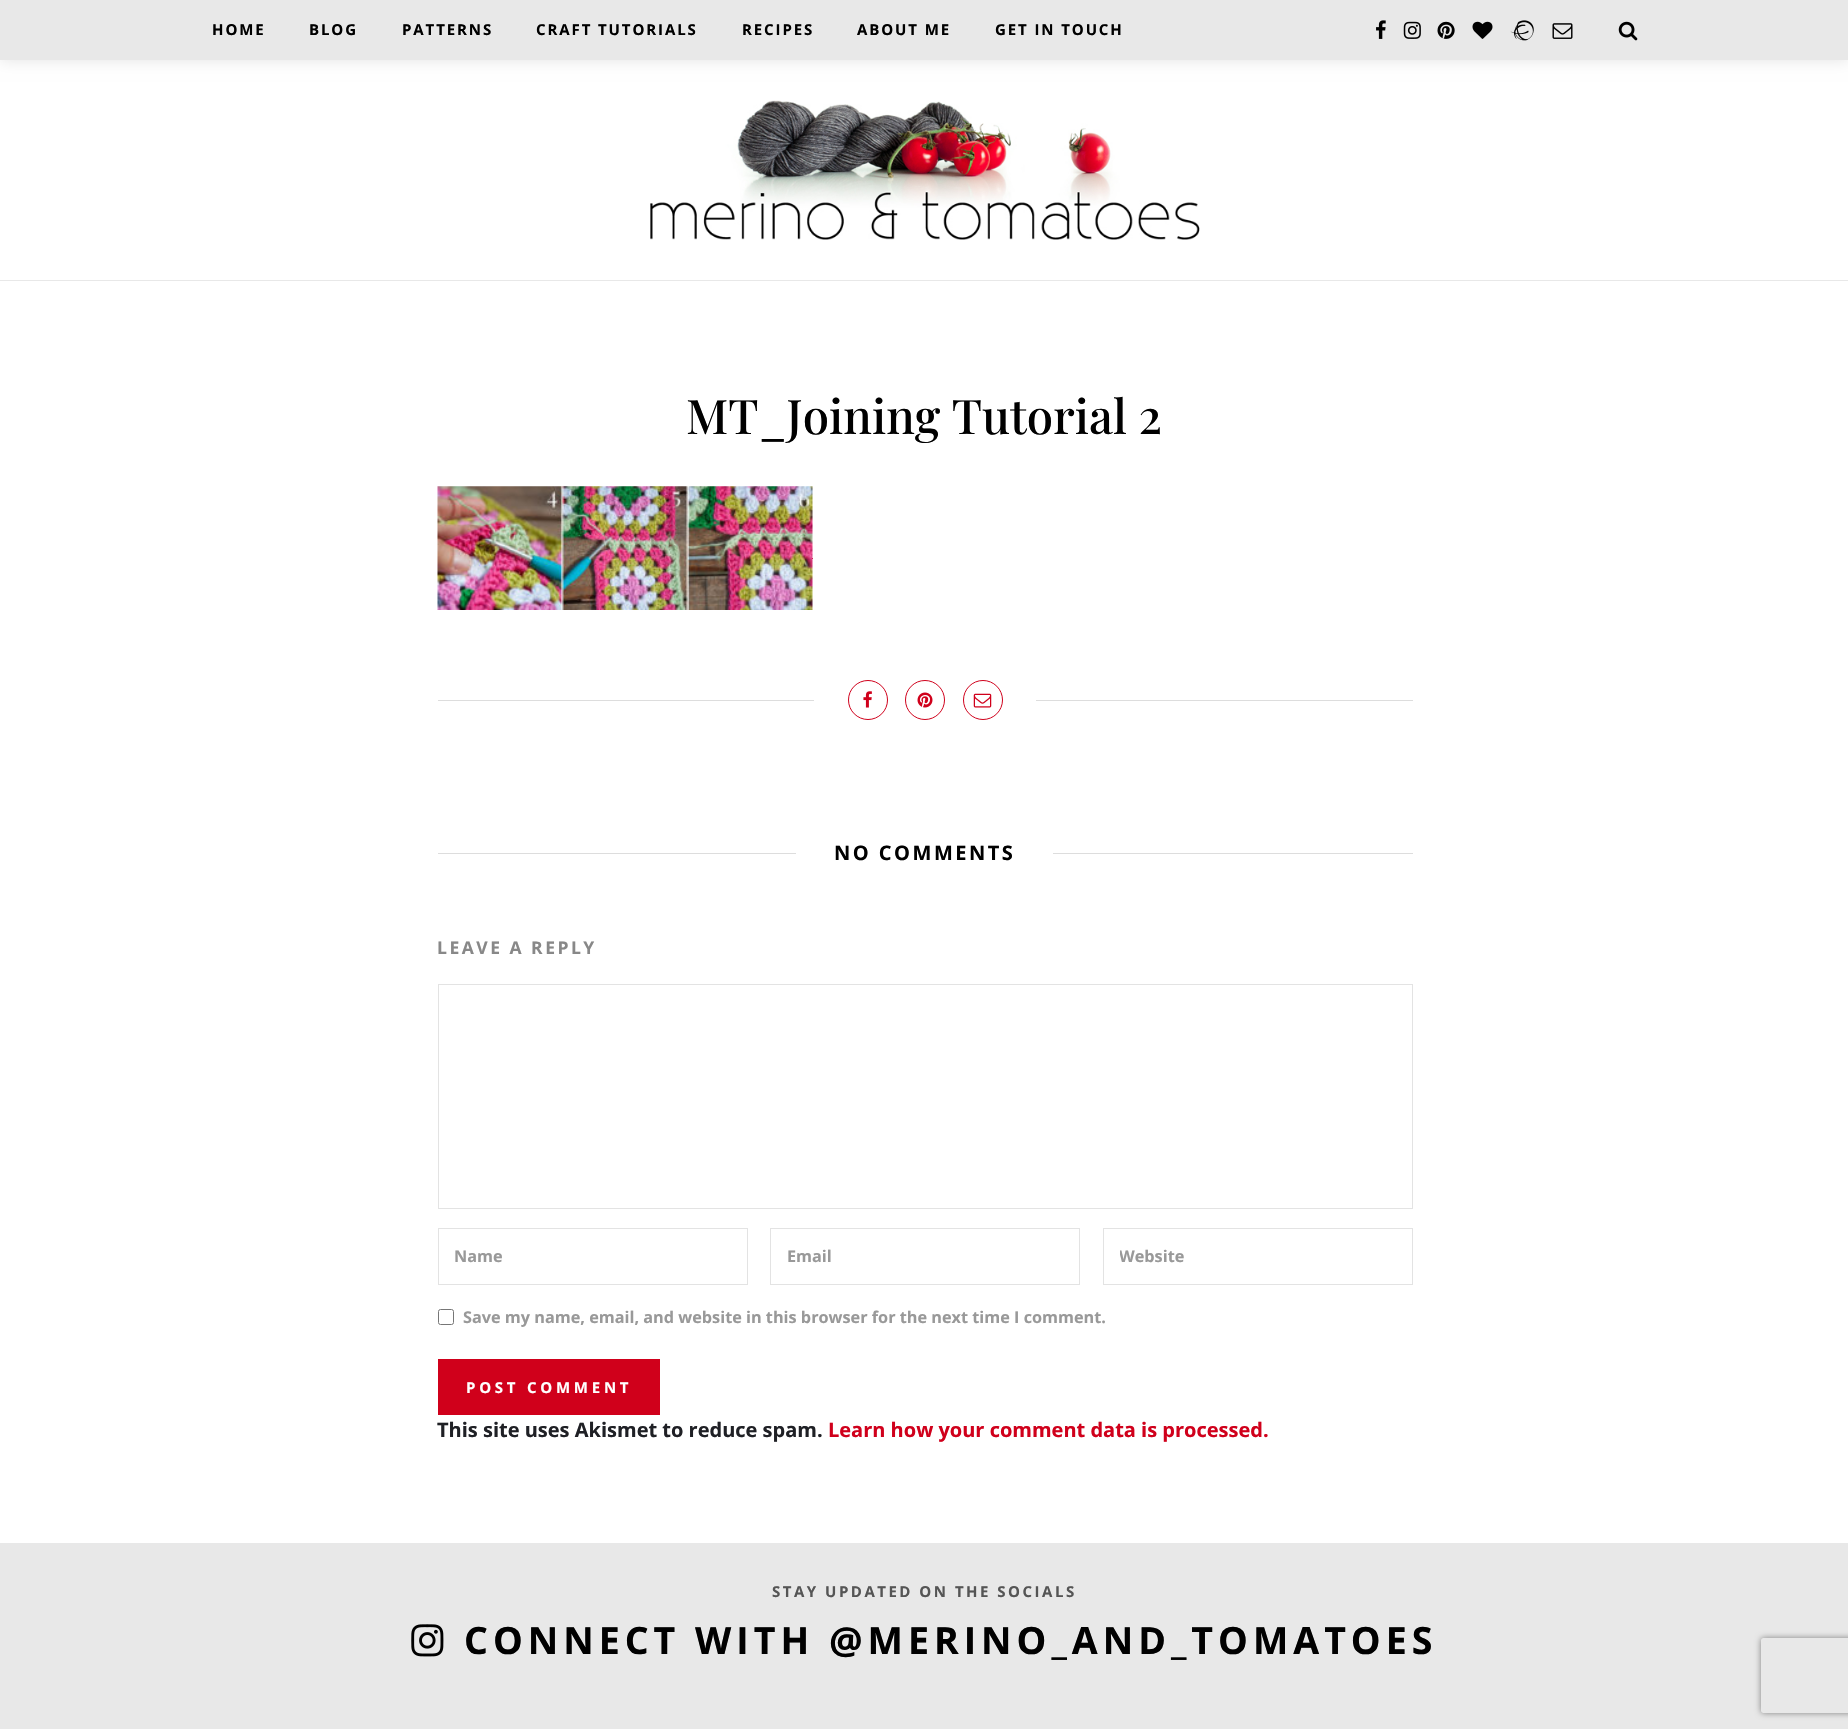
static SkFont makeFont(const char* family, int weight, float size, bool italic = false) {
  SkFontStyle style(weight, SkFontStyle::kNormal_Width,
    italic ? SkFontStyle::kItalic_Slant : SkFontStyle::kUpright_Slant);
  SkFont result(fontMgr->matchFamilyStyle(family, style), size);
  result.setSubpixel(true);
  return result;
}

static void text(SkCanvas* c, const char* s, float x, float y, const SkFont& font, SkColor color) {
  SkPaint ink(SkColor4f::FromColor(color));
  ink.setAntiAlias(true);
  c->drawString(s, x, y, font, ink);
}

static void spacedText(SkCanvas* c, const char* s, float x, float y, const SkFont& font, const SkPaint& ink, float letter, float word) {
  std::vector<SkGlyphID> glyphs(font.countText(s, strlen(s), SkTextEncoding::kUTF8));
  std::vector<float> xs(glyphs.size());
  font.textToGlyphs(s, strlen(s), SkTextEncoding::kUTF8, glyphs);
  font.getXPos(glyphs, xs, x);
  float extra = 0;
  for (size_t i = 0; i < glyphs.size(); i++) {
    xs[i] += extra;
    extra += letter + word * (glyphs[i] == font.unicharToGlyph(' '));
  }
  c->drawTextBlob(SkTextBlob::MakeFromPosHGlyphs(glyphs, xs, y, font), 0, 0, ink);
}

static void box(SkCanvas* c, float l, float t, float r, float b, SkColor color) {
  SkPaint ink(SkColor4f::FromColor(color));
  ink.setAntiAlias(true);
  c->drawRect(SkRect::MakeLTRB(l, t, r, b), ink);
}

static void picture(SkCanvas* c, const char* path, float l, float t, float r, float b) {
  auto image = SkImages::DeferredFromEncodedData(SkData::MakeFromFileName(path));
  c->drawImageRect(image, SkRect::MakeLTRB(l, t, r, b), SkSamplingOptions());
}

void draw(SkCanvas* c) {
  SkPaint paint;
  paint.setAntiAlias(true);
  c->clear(0xffffffff);
  paint.setColor(0x1c000000);
  paint.setMaskFilter(SkMaskFilter::MakeBlur(kNormal_SkBlurStyle, 7.5f));
  c->drawRect(SkRect::MakeLTRB(0, 0, 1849, 60), paint);
  paint.setMaskFilter(nullptr);
  box(c, 0, 0, 1848, 60, 0xffe8e8e8);
  SkFont face1 = makeFont("Open Sans", 700, 15);
  paint.setColor(0xff000000);
  spacedText(c, "HOME", 212, 35, face1, paint, 1.9f, 0);
  spacedText(c, "BLOG", 309, 35, face1, paint, 1.9f, 0);
  spacedText(c, "PATTERNS", 402, 35, face1, paint, 1.9f, 0);
  spacedText(c, "CRAFT TUTORIALS", 536, 35, face1, paint, 1.9f, 0);
  spacedText(c, "RECIPES", 742, 35, face1, paint, 1.9f, 0);
  spacedText(c, "ABOUT ME", 857, 35, face1, paint, 1.9f, 0);
  spacedText(c, "GET IN TOUCH", 995, 35, face1, paint, 1.9f, 0);
  picture(c, "img_01.png", 1376, 20, 1386, 39);
  picture(c, "img_02.png", 1403, 21, 1421, 39);
  picture(c, "img_03.png", 1437, 21, 1455, 39);
  picture(c, "img_04.png", 1472, 21, 1493, 39);
  picture(c, "img_05.png", 1510, 20, 1534, 41);
  picture(c, "img_06.png", 1552, 23, 1573, 39);
  picture(c, "img_07.png", 1618, 21, 1638, 41);
  box(c, 0, 280, 1848, 281, 0xffe8e8e8);
  picture(c, "img_08.png", 650, 100, 1200, 240);
  SkFont face2 = makeFont("Playfair Display", 500, 47.5f);
  text(c, "MT_Joining Tutorial 2", 686, 434, face2, 0xff000000);
  box(c, 812, 558, 813, 559, 0xffd0001b);
  picture(c, "img_09.png", 437, 486, 813, 610);
  box(c, 438, 700, 814, 701, 0xffdddddd);
  paint.setStyle(SkPaint::kStroke_Style);
  paint.setStrokeWidth(1);
  paint.setColor(0xffd0001b);
  c->drawCircle(868, 700, 19.5f, paint);
  picture(c, "img_10.png", 863, 691, 872, 708);
  c->drawCircle(925, 700, 19.5f, paint);
  picture(c, "img_11.png", 917, 692, 933, 708);
  c->drawCircle(983, 700, 19.5f, paint);
  picture(c, "img_12.png", 973, 693, 992, 708);
  box(c, 1036, 700, 1413, 701, 0xffdddddd);
  box(c, 438, 853, 796, 854, 0xffdddddd);
  SkFont face3 = makeFont("Open Sans", 700, 20);
  paint.setStyle(SkPaint::kFill_Style);
  paint.setColor(0xff000000);
  spacedText(c, "NO COMMENTS", 834, 860, face3, paint, 2.5f, 0);
  box(c, 1053, 853, 1413, 854, 0xffdddddd);
  SkFont face4 = makeFont("Open Sans", 700, 17.5f);
  paint.setColor(0xff888888);
  spacedText(c, "LEAVE A REPLY", 437, 954, face4, paint, 2.5f, 0);
  paint.setStyle(SkPaint::kStroke_Style);
  paint.setColor(0xffe3e3e3);
  c->drawRect(SkRect::MakeLTRB(438.5f, 984.5f, 1412.5f, 1208.5f), paint);
  c->drawRect(SkRect::MakeLTRB(438.5f, 1228.5f, 747.5f, 1284.5f), paint);
  SkFont face5 = makeFont("Open Sans", 700, 16.25f);
  text(c, "Name", 454, 1262, face5, 0xff999999);
  c->drawRect(SkRect::MakeLTRB(770.5f, 1228.5f, 1079.5f, 1284.5f), paint);
  text(c, "Email", 787, 1262, face5, 0xff999999);
  c->drawRect(SkRect::MakeLTRB(1103.5f, 1228.5f, 1412.5f, 1284.5f), paint);
  c->save();
  c->clipRect(SkRect::MakeLTRB(1120, 1245, 1395, 1268));
  text(c, "Website", 1119, 1262, face5, 0xff999999);
  c->restore();
  paint.setColor(0xff767676);
  c->drawRoundRect(SkRect::MakeLTRB(438.5f, 1309.5f, 453.5f, 1324.5f), 2, 2, paint);
  text(c, "Save my name, email, and website in this browser for the next time I comment.", 463, 1323, face5, 0xff999999);
  box(c, 438, 1359, 660, 1415, 0xffd0001b);
  paint.setStyle(SkPaint::kFill_Style);
  paint.setColor(0xffffffff);
  spacedText(c, "POST COMMENT", 466, 1393, face1, paint, 3.75f, 0);
  text(c, "This site uses Akismet to reduce spam.", 437, 1437, face3, 0xff1f2025);
  text(c, "Learn how your comment data is processed.", 828, 1437, face3, 0xffd0001b);
  box(c, 0, 1543, 1848, 1729, 0xffe8e8e8);
  paint.setColor(0xff555555);
  spacedText(c, "STAY UPDATED ON THE SOCIALS", 772, 1597, face1, paint, 2.5f, 0);
  picture(c, "img_13.png", 411, 1624, 444, 1657);
  SkFont face6 = makeFont("Open Sans", 700, 37.5f);
  paint.setColor(0xff000000);
  spacedText(c, "CONNECT WITH @MERINO_AND_TOMATOES", 464, 1654, face6, paint, 5, 0);
  c->save();
  c->clipPath(SkPathBuilder(SkPathFillType::kEvenOdd).moveTo(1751, 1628).lineTo(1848, 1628).lineTo(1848, 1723).lineTo(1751, 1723).close().moveTo(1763.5f, 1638).lineTo(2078.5f, 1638).cubicTo(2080, 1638, 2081, 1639, 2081, 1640.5f).lineTo(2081, 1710.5f).cubicTo(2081, 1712, 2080, 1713, 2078.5f, 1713).lineTo(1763.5f, 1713).cubicTo(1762, 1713, 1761, 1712, 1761, 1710.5f).lineTo(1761, 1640.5f).cubicTo(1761, 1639, 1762, 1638, 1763.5f, 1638).close().detach(), true);
  paint.setColor(0xff808080);
  paint.setMaskFilter(SkMaskFilter::MakeBlur(kNormal_SkBlurStyle, 3));
  c->drawRoundRect(SkRect::MakeLTRB(1761, 1638, 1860, 1713), 2.5f, 2.5f, paint);
  paint.setMaskFilter(nullptr);
  c->restore();
}
